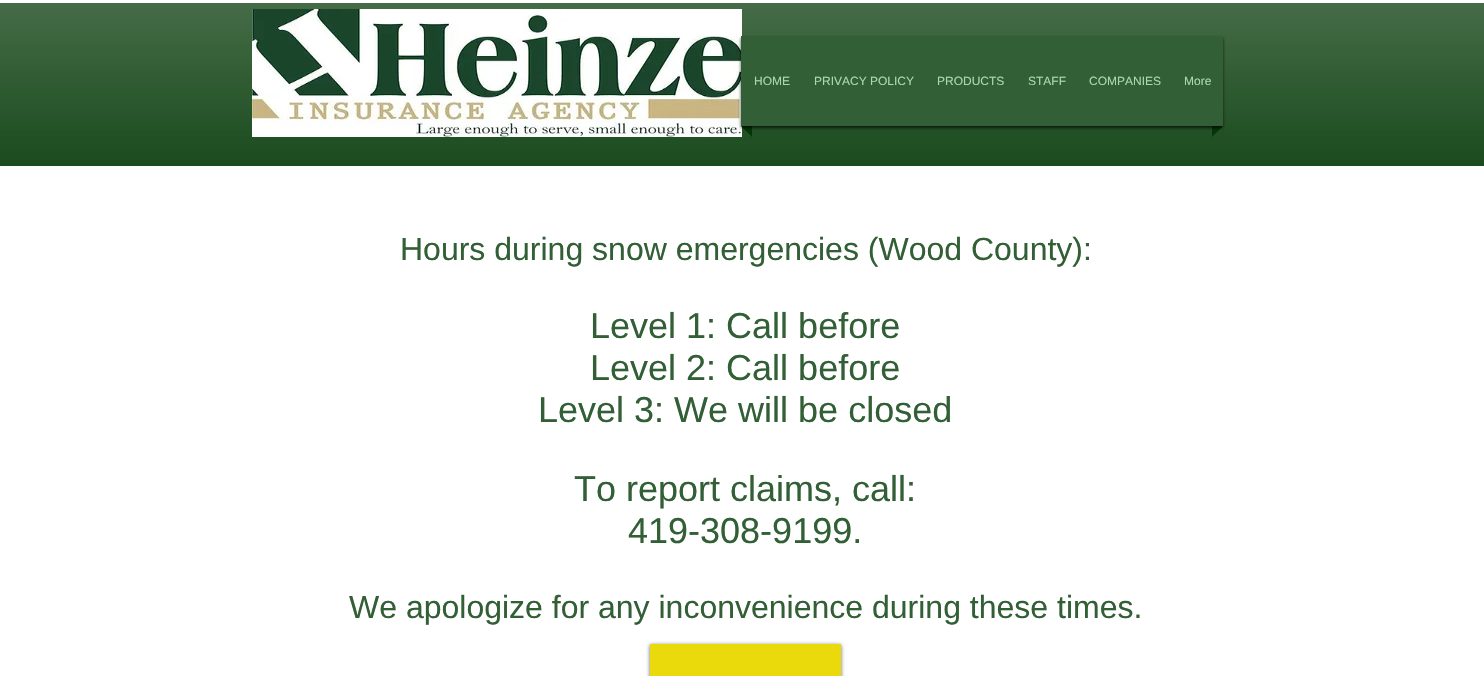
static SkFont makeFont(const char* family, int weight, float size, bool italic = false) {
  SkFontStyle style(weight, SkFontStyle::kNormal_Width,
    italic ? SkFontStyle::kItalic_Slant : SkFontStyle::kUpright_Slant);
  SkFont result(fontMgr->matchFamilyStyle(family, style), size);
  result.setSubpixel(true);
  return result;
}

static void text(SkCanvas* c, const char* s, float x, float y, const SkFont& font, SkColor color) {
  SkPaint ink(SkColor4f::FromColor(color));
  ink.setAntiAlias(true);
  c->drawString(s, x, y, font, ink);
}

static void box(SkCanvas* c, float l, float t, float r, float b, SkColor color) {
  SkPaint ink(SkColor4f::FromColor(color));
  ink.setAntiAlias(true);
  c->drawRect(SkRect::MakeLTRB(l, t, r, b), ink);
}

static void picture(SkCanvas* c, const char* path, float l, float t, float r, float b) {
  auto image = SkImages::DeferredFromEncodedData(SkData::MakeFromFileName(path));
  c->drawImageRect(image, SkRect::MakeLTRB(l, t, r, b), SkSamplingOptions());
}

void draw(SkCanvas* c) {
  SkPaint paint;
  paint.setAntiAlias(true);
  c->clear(0xffffffff);
  box(c, 0, 3, 1484, 166, 0xff033806);
  picture(c, "img_01.png", 0, 3, 1484, 166);
  picture(c, "img_02.png", 252, 9, 742, 137);
  paint.setColor(0xff033806);
  c->drawPath(SkPathBuilder().moveTo(741, 126).lineTo(752, 126).lineTo(752, 137).close().detach(), paint);
  c->drawPath(SkPathBuilder().moveTo(1212, 126).lineTo(1223, 126).lineTo(1212, 137).close().detach(), paint);
  paint.setColor(0xb3000000);
  paint.setMaskFilter(SkMaskFilter::MakeBlur(kNormal_SkBlurStyle, 1.5f));
  c->drawRect(SkRect::MakeLTRB(741, 38, 1223, 128), paint);
  paint.setMaskFilter(nullptr);
  box(c, 741, 36, 1223, 126, 0xff325f35);
  SkFont face1 = makeFont("Liberation Sans", 400, 12);
  text(c, "HOME", 754, 85, face1, 0xffaed7b0);
  text(c, "PRIVACY POLICY", 814, 85, face1, 0xffaed7b0);
  text(c, "PRODUCTS", 937, 85, face1, 0xffaed7b0);
  text(c, "STAFF", 1028, 85, face1, 0xffaed7b0);
  text(c, "COMPANIES", 1089, 85, face1, 0xffaed7b0);
  text(c, "More", 1184, 85, face1, 0xffaed7b0);
  SkFont face2 = makeFont("Liberation Sans", 400, 32);
  text(c, "Hours during snow emergencies (Wood County):", 400, 260, face2, 0xff325f35);
  SkFont face3 = makeFont("Liberation Sans", 400, 36);
  text(c, "Level 1: Call before", 590, 338, face3, 0xff325f35);
  text(c, "Level 2: Call before", 590, 380, face3, 0xff325f35);
  text(c, "Level 3: We will be closed", 538, 422, face3, 0xff325f35);
  text(c, "To report claims, call:", 574, 501, face3, 0xff325f35);
  text(c, "419-308-9199.", 628, 543, face3, 0xff325f35);
  text(c, "We apologize for any inconvenience during these times.", 349, 618, face2, 0xff325f35);
  paint.setColor(0x99000000);
  paint.setMaskFilter(SkMaskFilter::MakeBlur(kNormal_SkBlurStyle, 2));
  c->drawRect(SkRect::MakeLTRB(650, 645, 841, 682), paint);
  paint.setMaskFilter(nullptr);
  box(c, 650, 644, 841, 676, 0xffeada0c);
}
